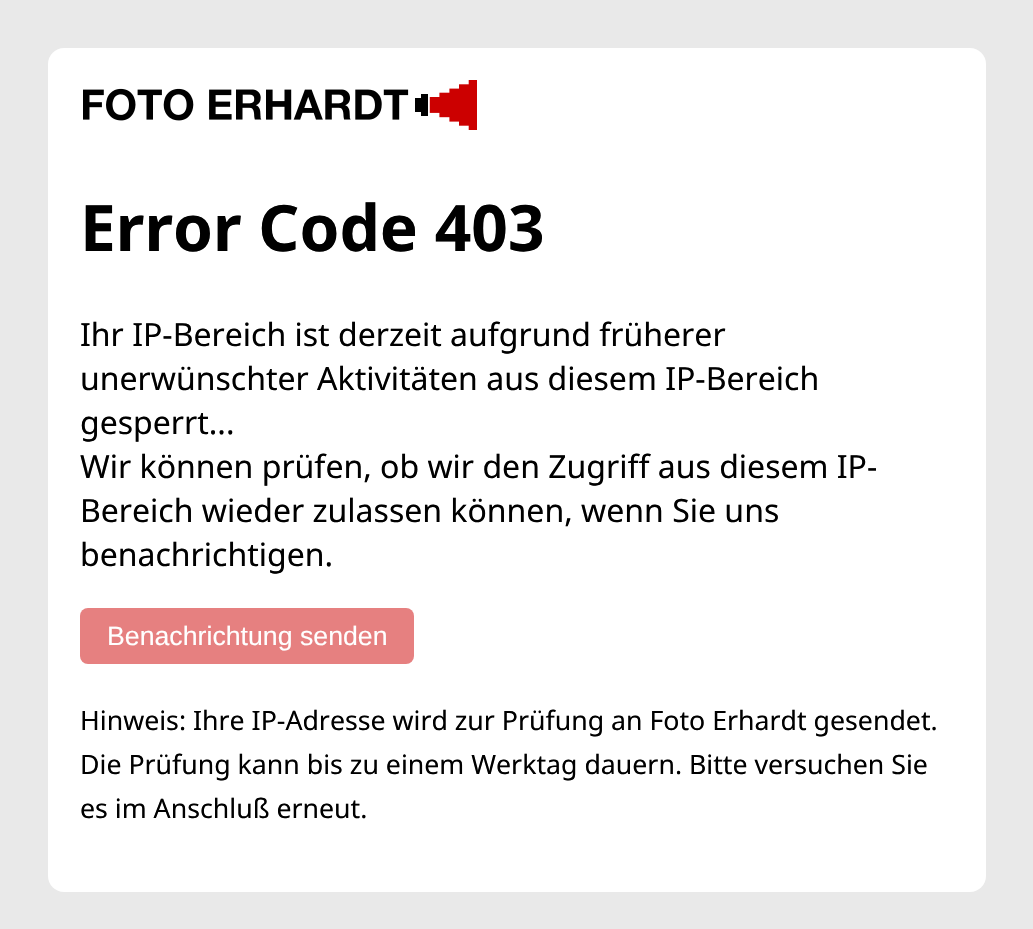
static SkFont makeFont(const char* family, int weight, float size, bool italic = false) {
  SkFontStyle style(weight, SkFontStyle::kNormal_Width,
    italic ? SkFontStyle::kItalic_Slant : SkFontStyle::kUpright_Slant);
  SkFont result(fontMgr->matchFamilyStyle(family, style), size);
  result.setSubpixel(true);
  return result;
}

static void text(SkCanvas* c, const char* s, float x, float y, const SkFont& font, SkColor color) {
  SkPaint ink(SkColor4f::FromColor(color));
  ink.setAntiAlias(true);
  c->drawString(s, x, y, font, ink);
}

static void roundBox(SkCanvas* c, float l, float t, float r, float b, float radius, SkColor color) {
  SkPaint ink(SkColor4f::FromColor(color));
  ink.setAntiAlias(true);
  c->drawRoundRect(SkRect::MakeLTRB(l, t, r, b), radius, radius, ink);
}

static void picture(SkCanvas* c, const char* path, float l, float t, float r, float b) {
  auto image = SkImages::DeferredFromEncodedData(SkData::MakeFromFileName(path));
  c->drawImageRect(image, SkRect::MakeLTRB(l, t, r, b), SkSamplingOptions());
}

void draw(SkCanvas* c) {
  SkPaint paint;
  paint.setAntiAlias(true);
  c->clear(0xffe9e9e9);
  roundBox(c, 48, 48, 986, 892, 16, 0xffffffff);
  picture(c, "img_01.png", 83, 80, 477, 130);
  SkFont face1 = makeFont("Noto Sans", 700, 64);
  text(c, "Error Code 403", 80, 251, face1, 0xff000000);
  SkFont face2 = makeFont("Noto Sans", 400, 32);
  text(c, "Ihr IP-Bereich ist derzeit aufgrund früherer", 80, 346, face2, 0xff000000);
  text(c, "unerwünschter Aktivitäten aus diesem IP-Bereich", 80, 390, face2, 0xff000000);
  text(c, "gesperrt...", 80, 434, face2, 0xff000000);
  text(c, "Wir können prüfen, ob wir den Zugriff aus diesem IP-", 80, 478, face2, 0xff000000);
  text(c, "Bereich wieder zulassen können, wenn Sie uns", 80, 522, face2, 0xff000000);
  text(c, "benachrichtigen.", 80, 566, face2, 0xff000000);
  roundBox(c, 80, 608, 414, 664, 8, 0xffe68080);
  SkFont face3 = makeFont("Liberation Sans", 400, 26.7f);
  text(c, "Benachrichtung senden", 107, 645, face3, 0xffffffff);
  SkFont face4 = makeFont("Noto Sans", 400, 26.7f);
  text(c, "Hinweis: Ihre IP-Adresse wird zur Prüfung an Foto Erhardt gesendet.", 80, 730, face4, 0xff000000);
  text(c, "Die Prüfung kann bis zu einem Werktag dauern. Bitte versuchen Sie", 80, 774, face4, 0xff000000);
  text(c, "es im Anschluß erneut.", 80, 818, face4, 0xff000000);
}
